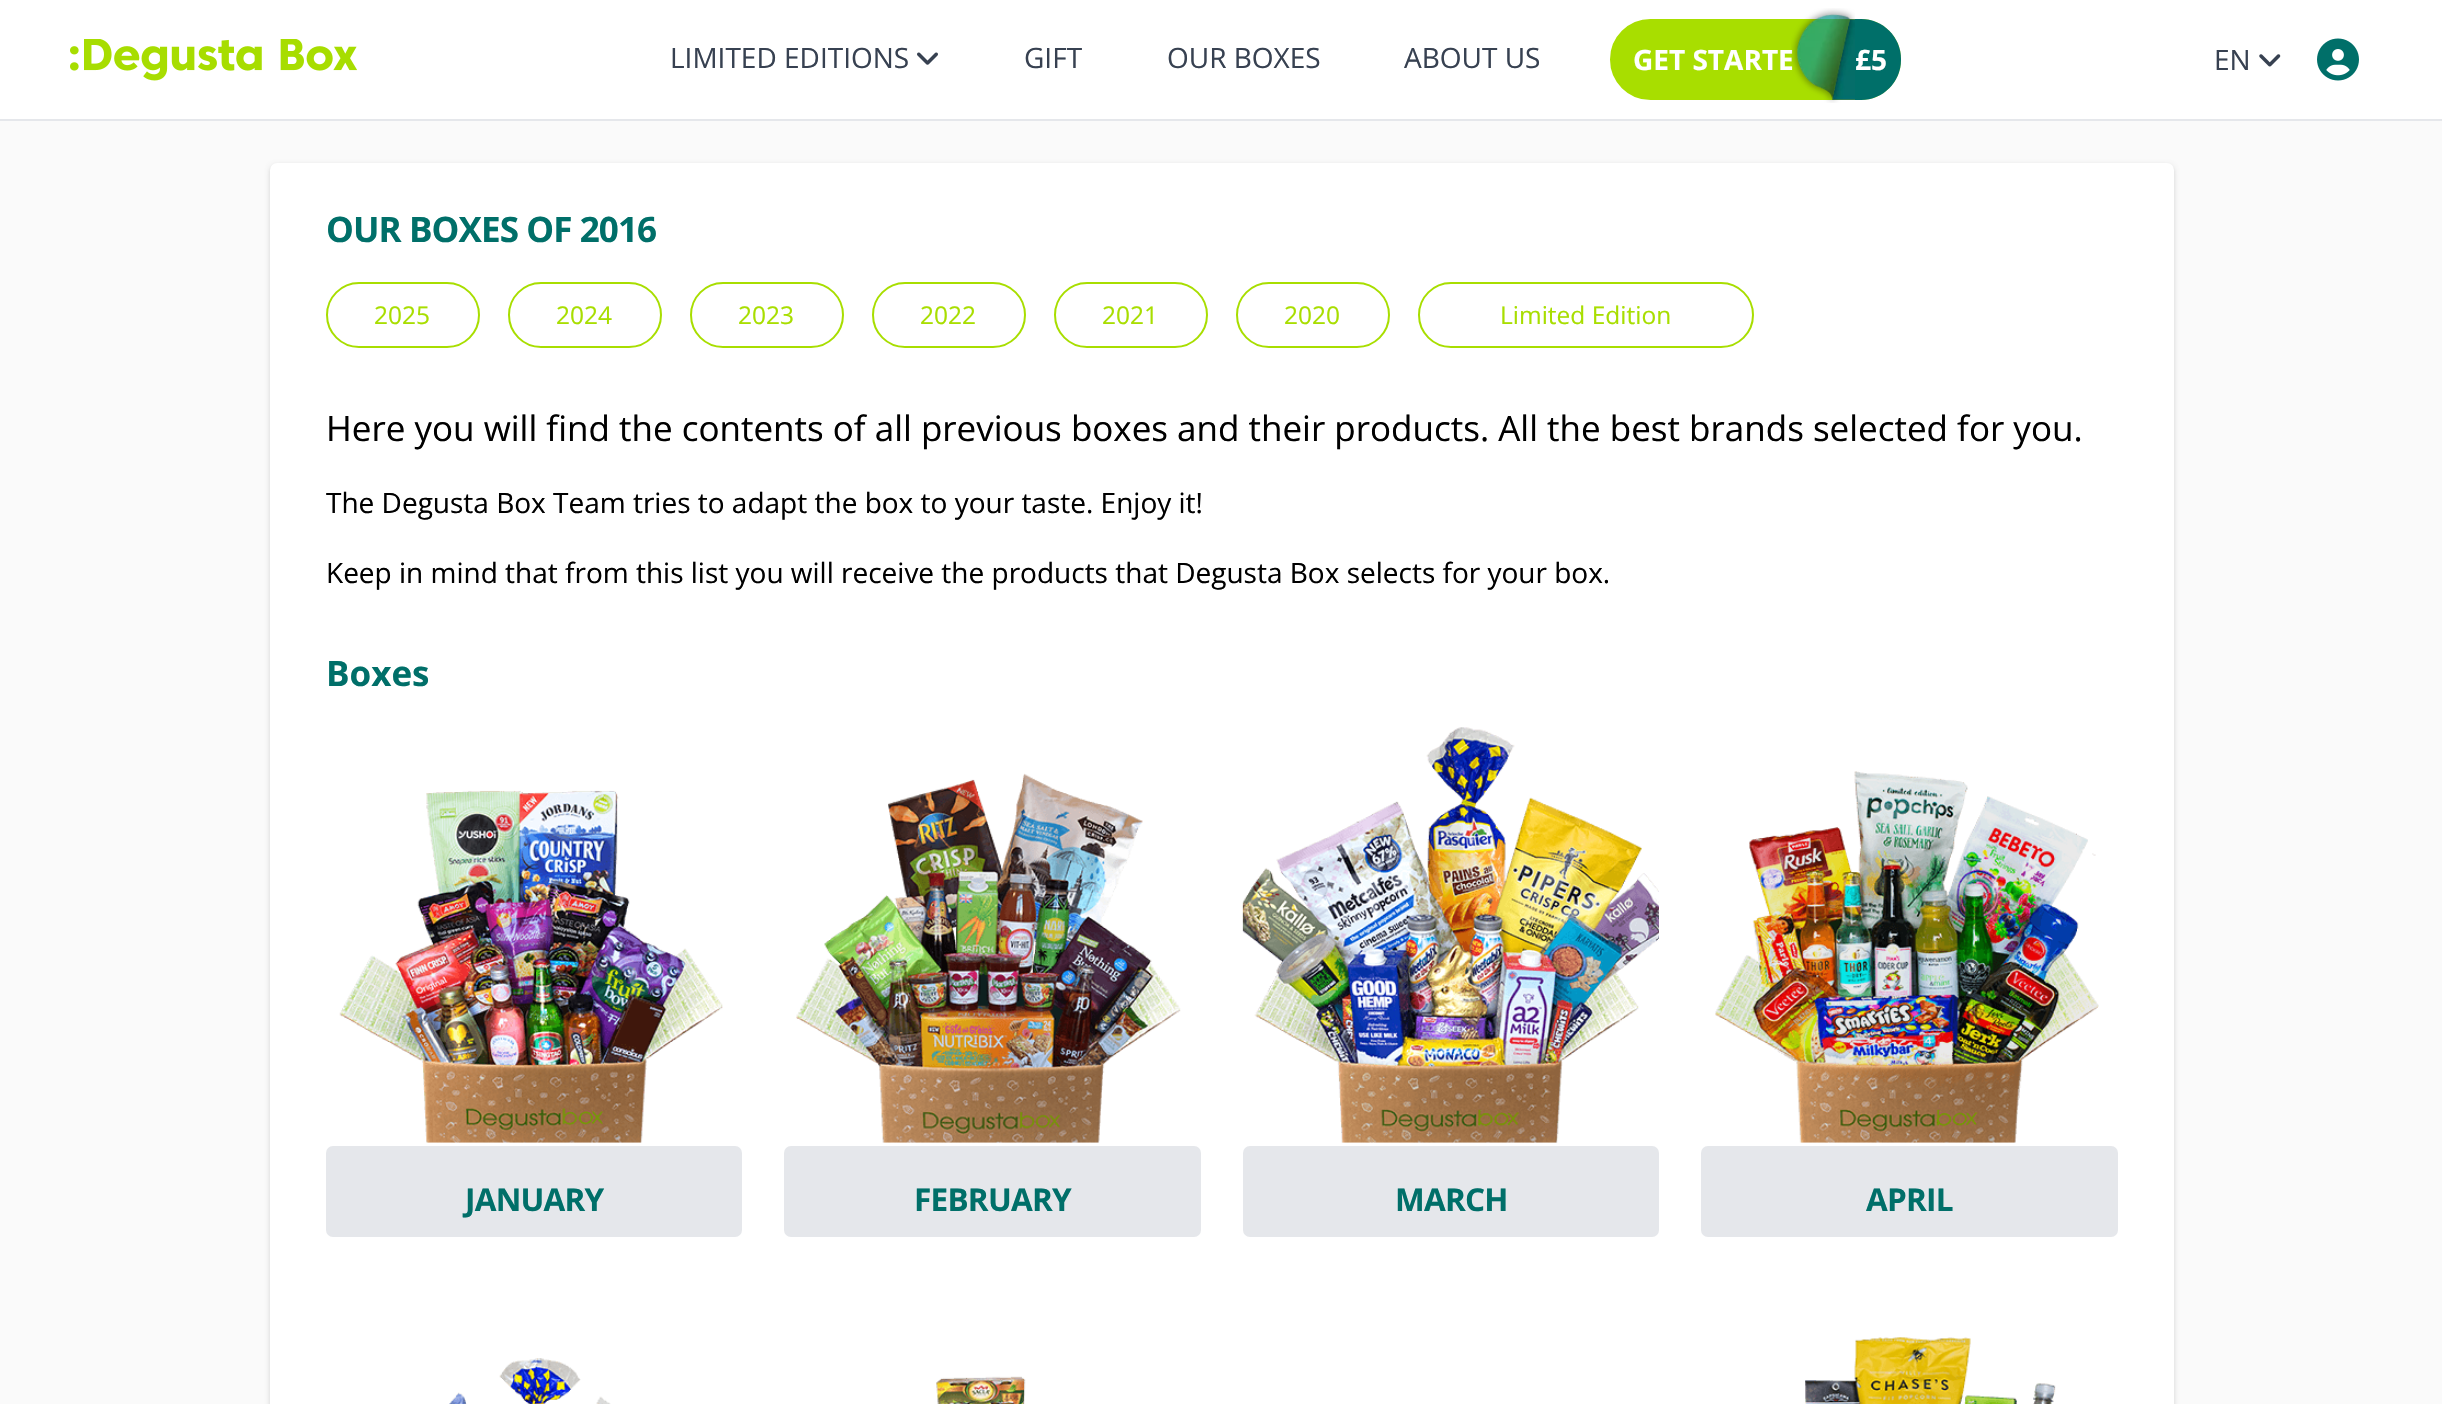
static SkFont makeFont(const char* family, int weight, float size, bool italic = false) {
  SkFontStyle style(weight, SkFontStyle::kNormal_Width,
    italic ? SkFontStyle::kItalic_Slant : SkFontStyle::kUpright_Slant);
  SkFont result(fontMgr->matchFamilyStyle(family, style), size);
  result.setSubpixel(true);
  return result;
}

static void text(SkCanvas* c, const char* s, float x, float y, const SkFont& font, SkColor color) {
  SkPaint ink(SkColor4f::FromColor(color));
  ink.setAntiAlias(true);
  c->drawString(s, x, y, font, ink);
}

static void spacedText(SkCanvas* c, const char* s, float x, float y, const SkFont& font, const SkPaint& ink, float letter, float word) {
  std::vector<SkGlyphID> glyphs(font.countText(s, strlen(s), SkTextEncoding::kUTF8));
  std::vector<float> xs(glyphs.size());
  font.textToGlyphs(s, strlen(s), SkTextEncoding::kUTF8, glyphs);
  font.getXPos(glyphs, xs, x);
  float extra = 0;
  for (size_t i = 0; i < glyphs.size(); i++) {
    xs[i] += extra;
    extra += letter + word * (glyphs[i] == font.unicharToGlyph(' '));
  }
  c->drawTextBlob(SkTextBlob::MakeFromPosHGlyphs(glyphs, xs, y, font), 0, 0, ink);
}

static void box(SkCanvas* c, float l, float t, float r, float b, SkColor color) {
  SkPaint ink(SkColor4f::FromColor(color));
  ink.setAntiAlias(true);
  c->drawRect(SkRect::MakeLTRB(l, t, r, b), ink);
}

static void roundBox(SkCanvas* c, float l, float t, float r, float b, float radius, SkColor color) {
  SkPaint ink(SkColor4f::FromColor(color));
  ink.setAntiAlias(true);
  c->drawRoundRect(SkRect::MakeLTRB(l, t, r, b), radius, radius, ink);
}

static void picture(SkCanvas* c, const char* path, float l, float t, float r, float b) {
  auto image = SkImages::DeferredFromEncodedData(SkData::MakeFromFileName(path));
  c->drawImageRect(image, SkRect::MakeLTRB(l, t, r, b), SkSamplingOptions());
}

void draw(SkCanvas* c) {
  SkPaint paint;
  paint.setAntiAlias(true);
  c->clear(0xffffffff);
  box(c, 0, 119, 2442, 121, 0xffe5e7eb);
  picture(c, "img_01.png", 70, 39, 357, 81);
  SkFont face1 = makeFont("Open Sans", 400, 28);
  text(c, "LIMITED EDITIONS", 670, 68, face1, 0xff374151);
  picture(c, "img_02.png", 917, 52, 938, 65);
  text(c, "GIFT", 1024, 68, face1, 0xff374151);
  text(c, "OUR BOXES", 1167, 68, face1, 0xff374151);
  text(c, "ABOUT US", 1404, 68, face1, 0xff374151);
  paint.setColor(0xffa8de00);
  c->drawRoundRect(SkRect::MakeLTRB(1611, 20, 1900, 99), 39.5f, 39.5f, paint);
  paint.setStyle(SkPaint::kStroke_Style);
  paint.setStrokeWidth(2);
  c->drawRoundRect(SkRect::MakeLTRB(1611, 20, 1900, 99), 39.5f, 39.5f, paint);
  SkFont face2 = makeFont("Open Sans", 700, 28);
  text(c, "GET STARTE", 1633, 70, face2, 0xffffffff);
  picture(c, "img_03.png", 1791, 8, 1855, 103);
  paint.setStyle(SkPaint::kFill_Style);
  paint.setColor(0xff006f69);
  c->drawPath(SkPathBuilder().moveTo(1855, 19).lineTo(1861, 19).cubicTo(1883, 19, 1901, 37, 1901, 59).lineTo(1901, 60).cubicTo(1901, 82, 1883, 100, 1861, 100).lineTo(1855, 100).close().detach(), paint);
  text(c, "£5", 1855, 70, face2, 0xffffffff);
  text(c, "EN", 2214, 70, face1, 0xff374151);
  picture(c, "img_04.png", 2259, 54, 2281, 67);
  picture(c, "img_05.png", 2317, 38, 2359, 81);
  box(c, 0, 121, 2442, 1404, 0xfffafafa);
  paint.setColor(0x0f000000);
  paint.setMaskFilter(SkMaskFilter::MakeBlur(kNormal_SkBlurStyle, 2));
  c->drawRoundRect(SkRect::MakeLTRB(270, 165, 2174, 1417), 7, 7, paint);
  paint.setMaskFilter(nullptr);
  paint.setColor(0x1a000000);
  paint.setMaskFilter(SkMaskFilter::MakeBlur(kNormal_SkBlurStyle, 2.5f));
  c->drawRoundRect(SkRect::MakeLTRB(270, 165, 2174, 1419), 7, 7, paint);
  paint.setMaskFilter(nullptr);
  roundBox(c, 270, 163, 2174, 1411, 7, 0xffffffff);
  SkFont face3 = makeFont("Open Sans", 700, 35);
  paint.setColor(0xff006f69);
  spacedText(c, "OUR BOXES OF 2016", 326, 242, face3, paint, -0.9f, 0);
  paint.setStyle(SkPaint::kStroke_Style);
  paint.setColor(0xffa8de00);
  c->drawRoundRect(SkRect::MakeLTRB(327, 283, 479, 347), 32, 32, paint);
  SkFont face4 = makeFont("Open Sans", 400, 24.5f);
  text(c, "2025", 374, 324, face4, 0xffa8de00);
  c->drawRoundRect(SkRect::MakeLTRB(509, 283, 661, 347), 32, 32, paint);
  text(c, "2024", 556, 324, face4, 0xffa8de00);
  c->drawRoundRect(SkRect::MakeLTRB(691, 283, 843, 347), 32, 32, paint);
  text(c, "2023", 738, 324, face4, 0xffa8de00);
  c->drawRoundRect(SkRect::MakeLTRB(873, 283, 1025, 347), 32, 32, paint);
  text(c, "2022", 920, 324, face4, 0xffa8de00);
  c->drawRoundRect(SkRect::MakeLTRB(1055, 283, 1207, 347), 32, 32, paint);
  text(c, "2021", 1102, 324, face4, 0xffa8de00);
  c->drawRoundRect(SkRect::MakeLTRB(1237, 283, 1389, 347), 32, 32, paint);
  text(c, "2020", 1284, 324, face4, 0xffa8de00);
  c->drawRoundRect(SkRect::MakeLTRB(1419, 283, 1753, 347), 32, 32, paint);
  text(c, "Limited Edition", 1500, 324, face4, 0xffa8de00);
  SkFont face5 = makeFont("Open Sans", 400, 35);
  text(c, "Here you will find the contents of all previous boxes and their products. All the best brands selected for you.", 326, 441, face5, 0xff000000);
  text(c, "The Degusta Box Team tries to adapt the box to your taste. Enjoy it!", 326, 513, face1, 0xff000000);
  text(c, "Keep in mind that from this list you will receive the products that Degusta Box selects for your box.", 326, 583, face1, 0xff000000);
  text(c, "Boxes", 326, 686, face3, 0xff006f69);
  picture(c, "img_06.png", 339, 790, 723, 1143);
  roundBox(c, 326, 1146, 742, 1237, 7, 0xffe5e7eb);
  SkFont face6 = makeFont("Open Sans", 700, 31.5f);
  paint.setStyle(SkPaint::kFill_Style);
  paint.setColor(0xff006f69);
  spacedText(c, "JANUARY", 465, 1211, face6, paint, -0.75f, 0);
  picture(c, "img_07.png", 796, 773, 1181, 1143);
  roundBox(c, 784, 1146, 1201, 1237, 7, 0xffe5e7eb);
  spacedText(c, "FEBRUARY", 914, 1211, face6, paint, -0.75f, 0);
  picture(c, "img_08.png", 1242, 727, 1659, 1143);
  roundBox(c, 1243, 1146, 1659, 1237, 7, 0xffe5e7eb);
  spacedText(c, "MARCH", 1395, 1211, face6, paint, -0.75f, 0);
  picture(c, "img_09.png", 1715, 771, 2099, 1143);
  roundBox(c, 1701, 1146, 2118, 1237, 7, 0xffe5e7eb);
  spacedText(c, "APRIL", 1866, 1211, face6, paint, -0.75f, 0);
  picture(c, "img_10.png", 449, 1358, 611, 1404);
  picture(c, "img_11.png", 936, 1376, 1026, 1404);
  picture(c, "img_12.png", 1805, 1337, 2056, 1404);
}
